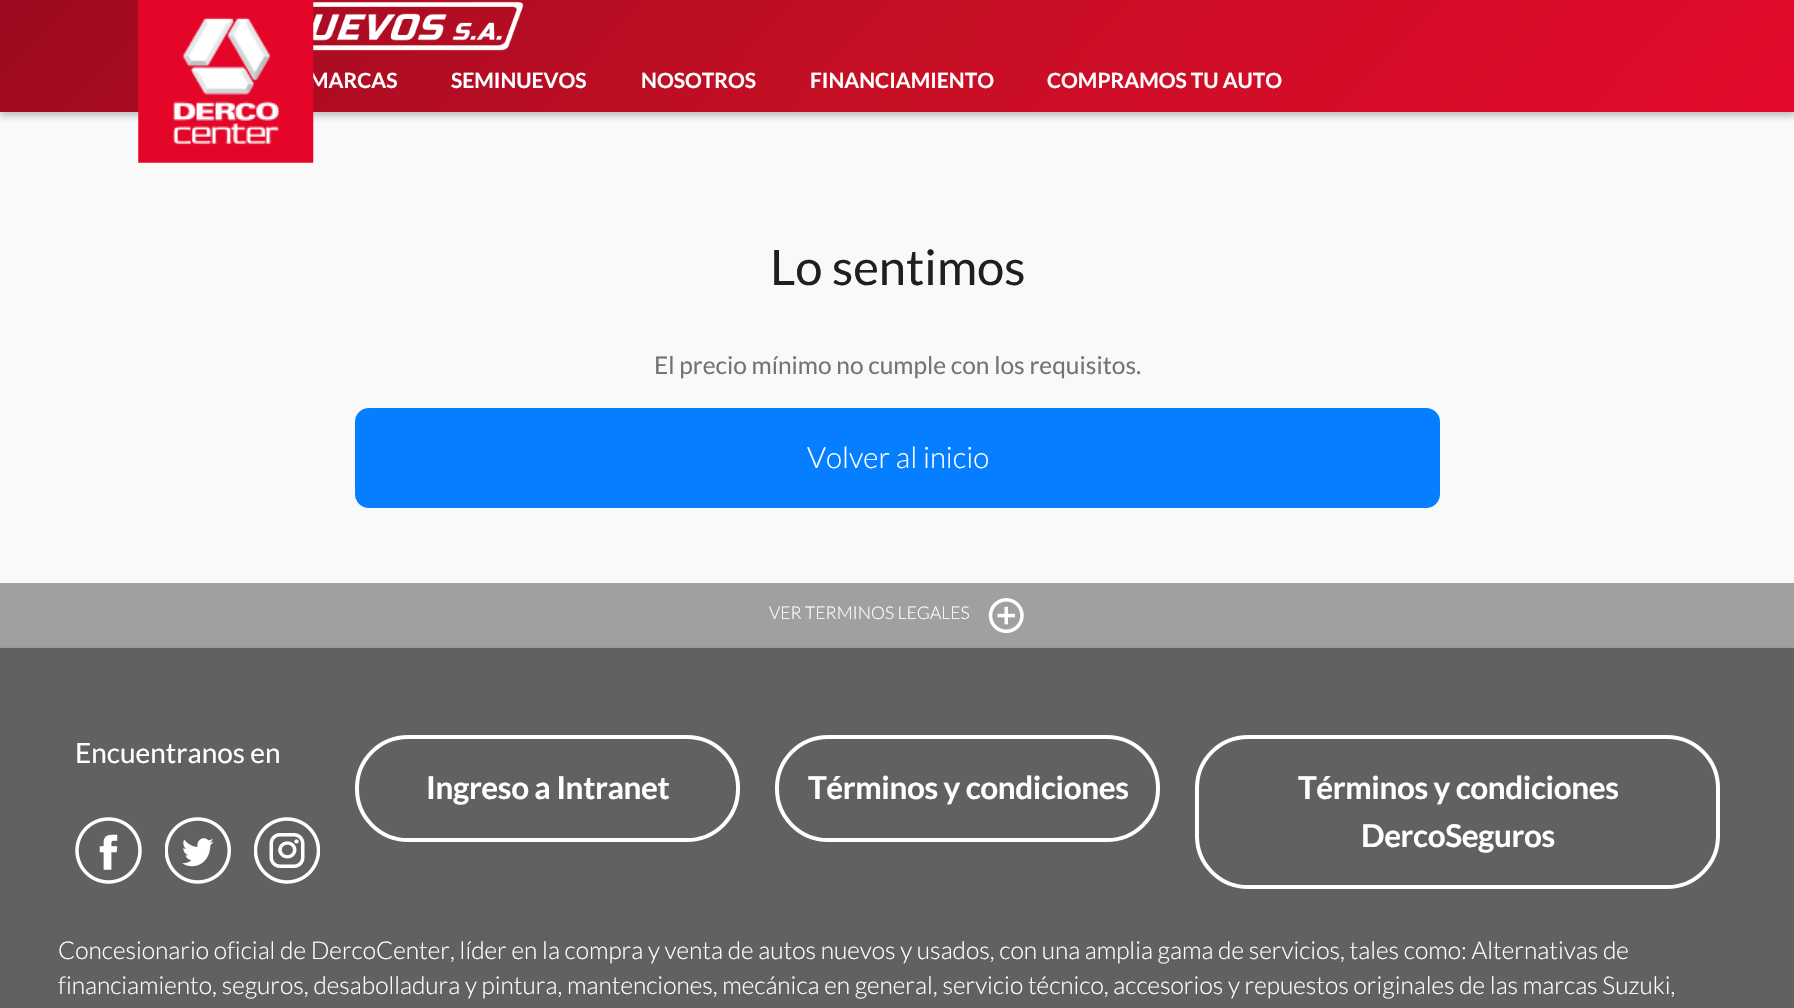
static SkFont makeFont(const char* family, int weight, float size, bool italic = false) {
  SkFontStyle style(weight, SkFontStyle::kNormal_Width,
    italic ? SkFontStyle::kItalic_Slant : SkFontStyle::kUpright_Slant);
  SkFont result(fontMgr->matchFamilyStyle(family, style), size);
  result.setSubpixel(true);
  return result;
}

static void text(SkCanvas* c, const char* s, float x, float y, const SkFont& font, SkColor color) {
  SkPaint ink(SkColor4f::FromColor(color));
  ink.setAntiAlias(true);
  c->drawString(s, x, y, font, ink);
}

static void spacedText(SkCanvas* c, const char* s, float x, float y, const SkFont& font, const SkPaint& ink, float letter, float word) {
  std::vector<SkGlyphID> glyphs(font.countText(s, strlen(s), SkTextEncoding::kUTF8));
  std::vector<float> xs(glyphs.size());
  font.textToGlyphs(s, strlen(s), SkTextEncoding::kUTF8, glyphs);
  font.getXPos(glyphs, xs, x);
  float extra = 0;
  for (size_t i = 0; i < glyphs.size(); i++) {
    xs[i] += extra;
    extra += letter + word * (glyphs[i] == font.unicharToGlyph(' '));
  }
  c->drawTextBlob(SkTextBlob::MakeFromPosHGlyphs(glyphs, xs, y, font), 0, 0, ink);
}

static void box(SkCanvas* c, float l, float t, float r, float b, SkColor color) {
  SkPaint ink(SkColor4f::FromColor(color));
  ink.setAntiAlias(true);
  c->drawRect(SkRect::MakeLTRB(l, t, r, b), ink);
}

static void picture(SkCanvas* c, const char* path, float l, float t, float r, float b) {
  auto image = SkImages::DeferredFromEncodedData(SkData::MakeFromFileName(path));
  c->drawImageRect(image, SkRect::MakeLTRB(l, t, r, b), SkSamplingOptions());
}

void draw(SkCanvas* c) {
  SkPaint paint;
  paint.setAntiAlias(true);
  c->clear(0xfff9f9f9);
  paint.setColor(0x3d050505);
  paint.setMaskFilter(SkMaskFilter::MakeBlur(kNormal_SkBlurStyle, 3.5f));
  c->drawRect(SkRect::MakeLTRB(0, 4, 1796, 116), paint);
  paint.setMaskFilter(nullptr);
  {
    const SkColor colors[] = {0xffe40a2b, 0xffc50f24, 0xff9d0a21};
    const float stops[] = {0, 0.51f, 1};
    const SkPoint ends[] = {{1407, 530}, {389, -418}};
    paint.setShader(SkGradientShader::MakeLinear(ends, colors, stops, 3, SkTileMode::kClamp));
    paint.setAlpha(255);
  }
  c->drawRect(SkRect::MakeLTRB(0, 0, 1794, 112), paint);
  picture(c, "img_02.png", 313, 1, 524, 51);
  SkFont face1 = makeFont("Lato", 700, 21);
  text(c, "MARCAS", 309, 88, face1, 0xffffffff);
  picture(c, "img_01.png", 138, 0, 314, 163);
  text(c, "SEMINUEVOS", 451, 88, face1, 0xffffffff);
  text(c, "NOSOTROS", 641, 88, face1, 0xffffffff);
  text(c, "FINANCIAMIENTO", 810, 88, face1, 0xffffffff);
  text(c, "COMPRAMOS TU AUTO", 1047, 88, face1, 0xffffffff);
  SkFont face2 = makeFont("Lato", 400, 49);
  text(c, "Lo sentimos", 770, 285, face2, 0xff1f1f1f);
  SkFont face3 = makeFont("Lato", 400, 24.5f);
  text(c, "El precio mínimo no cumple con los requisitos.", 654, 374, face3, 0xff747474);
  paint.setShader(nullptr);
  paint.setColor(0xff057eff);
  c->drawRoundRect(SkRect::MakeLTRB(356, 409, 1439, 507), 13, 13, paint);
  paint.setStyle(SkPaint::kStroke_Style);
  paint.setStrokeWidth(2);
  c->drawRoundRect(SkRect::MakeLTRB(356, 409, 1439, 507), 13, 13, paint);
  SkFont face4 = makeFont("Lato", 300, 29.5f);
  text(c, "Volver al inicio", 807, 468, face4, 0xffffffff);
  box(c, 0, 583, 1794, 648, 0xffa0a0a0);
  SkFont face5 = makeFont("Lato", 300, 17.5f);
  text(c, "VER TERMINOS LEGALES", 769, 619, face5, 0xffffffff);
  picture(c, "img_03.png", 988, 598, 1024, 634);
  paint.setStyle(SkPaint::kFill_Style);
  paint.setColor(0x3d050505);
  paint.setMaskFilter(SkMaskFilter::MakeBlur(kNormal_SkBlurStyle, 3.5f));
  c->drawRect(SkRect::MakeLTRB(-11, 651, 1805, 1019), paint);
  paint.setMaskFilter(nullptr);
  box(c, 0, 648, 1794, 1008, 0xff616161);
  SkFont face6 = makeFont("Lato", 400, 28);
  text(c, "Encuentranos en", 75, 763, face6, 0xffffffff);
  picture(c, "img_04.png", 75, 817, 142, 884);
  picture(c, "img_05.png", 165, 817, 231, 884);
  picture(c, "img_06.png", 254, 817, 320, 884);
  paint.setStyle(SkPaint::kStroke_Style);
  paint.setStrokeWidth(4);
  paint.setColor(0xffffffff);
  c->drawRoundRect(SkRect::MakeLTRB(357, 737, 738, 840), 51, 51, paint);
  SkFont face7 = makeFont("Lato", 700, 31.5f);
  paint.setStyle(SkPaint::kFill_Style);
  spacedText(c, "Ingreso a Intranet", 426, 799, face7, paint, -0.4f, 0);
  paint.setStyle(SkPaint::kStroke_Style);
  c->drawRoundRect(SkRect::MakeLTRB(777, 737, 1158, 840), 51, 51, paint);
  paint.setStyle(SkPaint::kFill_Style);
  spacedText(c, "Términos y condiciones", 808, 799, face7, paint, -0.4f, 0);
  paint.setStyle(SkPaint::kStroke_Style);
  c->drawRoundRect(SkRect::MakeLTRB(1197, 737, 1718, 887), 51, 51, paint);
  paint.setStyle(SkPaint::kFill_Style);
  spacedText(c, "Términos y condiciones", 1298, 799, face7, paint, -0.4f, 0);
  spacedText(c, "DercoSeguros", 1361, 847, face7, paint, -0.4f, 0);
  SkFont face8 = makeFont("Lato", 300, 24.5f);
  text(c, "Concesionario oficial de DercoCenter, líder en la compra y venta de autos nuevos y usados, con una amplia gama de servicios, tales como: Alternativas de", 58, 959, face8, 0xffffffff);
  text(c, "financiamiento, seguros, desabolladura y pintura, mantenciones, mecánica en general, servicio técnico, accesorios y repuestos originales de las marcas Suzuki,", 58, 994, face8, 0xffffffff);
}
